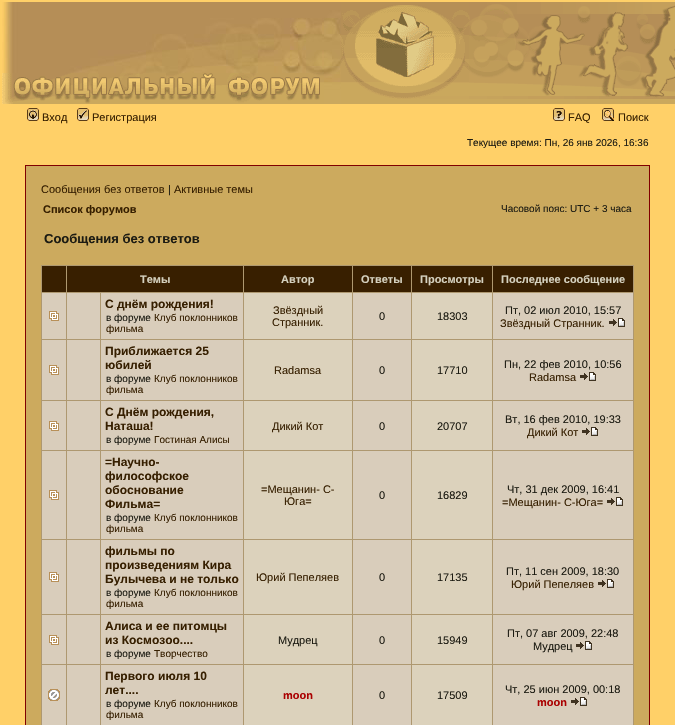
static SkFont makeFont(const char* family, int weight, float size, bool italic = false) {
  SkFontStyle style(weight, SkFontStyle::kNormal_Width,
    italic ? SkFontStyle::kItalic_Slant : SkFontStyle::kUpright_Slant);
  SkFont result(fontMgr->matchFamilyStyle(family, style), size);
  result.setSubpixel(true);
  return result;
}

static void text(SkCanvas* c, const char* s, float x, float y, const SkFont& font, SkColor color) {
  SkPaint ink(SkColor4f::FromColor(color));
  ink.setAntiAlias(true);
  c->drawString(s, x, y, font, ink);
}

static void box(SkCanvas* c, float l, float t, float r, float b, SkColor color) {
  SkPaint ink(SkColor4f::FromColor(color));
  ink.setAntiAlias(true);
  c->drawRect(SkRect::MakeLTRB(l, t, r, b), ink);
}

static void picture(SkCanvas* c, const char* path, float l, float t, float r, float b) {
  auto image = SkImages::DeferredFromEncodedData(SkData::MakeFromFileName(path));
  c->drawImageRect(image, SkRect::MakeLTRB(l, t, r, b), SkSamplingOptions());
}

void draw(SkCanvas* c) {
  SkPaint paint;
  paint.setAntiAlias(true);
  c->clear(0xffffd068);
  picture(c, "img_01.png", 2, 2, 675, 104);
  picture(c, "img_02.png", 27, 108, 39, 121);
  SkFont face1 = makeFont("Liberation Sans", 400, 11);
  text(c, "Вход", 42, 121, face1, 0xff361f00);
  picture(c, "img_03.png", 77, 108, 89, 121);
  text(c, "Регистрация", 92, 121, face1, 0xff361f00);
  picture(c, "img_04.png", 553, 108, 565, 121);
  text(c, "FAQ", 568, 121, face1, 0xff361f00);
  picture(c, "img_05.png", 602, 108, 614, 121);
  text(c, "Поиск", 618, 121, face1, 0xff361f00);
  SkFont face2 = makeFont("Liberation Sans", 400, 10);
  text(c, "Текущее время: Пн, 26 янв 2026, 16:36", 467, 146, face2, 0xff1c1b12);
  paint.setColor(0xffccaa5e);
  c->drawRect(SkRect::MakeLTRB(25.5f, 165.5f, 649.5f, 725.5f), paint);
  paint.setStyle(SkPaint::kStroke_Style);
  paint.setStrokeWidth(1);
  paint.setColor(0xff800000);
  c->drawRect(SkRect::MakeLTRB(25.5f, 165.5f, 649.5f, 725.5f), paint);
  text(c, "Сообщения без ответов", 41, 193, face1, 0xff361f00);
  text(c, "|", 168, 193, face1, 0xff1c1b12);
  text(c, "Активные темы", 174, 193, face1, 0xff361f00);
  SkFont face3 = makeFont("Liberation Sans", 700, 11);
  text(c, "Список форумов", 43, 213, face3, 0xff361f00);
  text(c, "Часовой пояс: UTC + 3 часа", 501, 212, face2, 0xff1c1b12);
  SkFont face4 = makeFont("Liberation Sans", 700, 13);
  text(c, "Сообщения без ответов", 44, 243, face4, 0xff1c1b12);
  box(c, 41, 265, 634, 725, 0xffae9870);
  box(c, 42, 266, 66, 292, 0xff381f00);
  box(c, 67, 266, 243, 292, 0xff381f00);
  text(c, "Темы", 140, 283, face3, 0xffd5d1bf);
  box(c, 244, 266, 352, 292, 0xff381f00);
  text(c, "Автор", 281, 283, face3, 0xffd5d1bf);
  box(c, 353, 266, 411, 292, 0xff381f00);
  text(c, "Ответы", 361, 283, face3, 0xffd5d1bf);
  box(c, 412, 266, 492, 292, 0xff381f00);
  text(c, "Просмотры", 420, 283, face3, 0xffd5d1bf);
  box(c, 493, 266, 633, 292, 0xff381f00);
  text(c, "Последнее сообщение", 501, 283, face3, 0xffd5d1bf);
  box(c, 42, 293, 66, 339, 0xffd9cdbb);
  picture(c, "img_06.png", 49, 311, 59, 321);
  box(c, 67, 293, 100, 339, 0xffd9cdbb);
  box(c, 101, 293, 243, 339, 0xffd9cdbb);
  SkFont face5 = makeFont("Liberation Sans", 700, 12);
  text(c, "С днём рождения!", 105, 308, face5, 0xff361f00);
  text(c, "в форуме", 106, 321, face2, 0xff1c1b12);
  text(c, "Клуб поклонников", 154, 321, face2, 0xff361f00);
  text(c, "фильма", 106, 332, face2, 0xff361f00);
  box(c, 244, 293, 352, 339, 0xffdcd2bc);
  text(c, "Звёздный", 273, 314, face1, 0xff361f00);
  text(c, "Странник.", 272, 326, face1, 0xff361f00);
  box(c, 353, 293, 411, 339, 0xffd9cdbb);
  text(c, "0", 379, 320, face1, 0xff1c1b12);
  box(c, 412, 293, 492, 339, 0xffdcd2bc);
  text(c, "18303", 437, 320, face1, 0xff1c1b12);
  box(c, 493, 293, 633, 339, 0xffd9cdbb);
  text(c, "Пт, 02 июл 2010, 15:57", 505, 314, face1, 0xff1c1b12);
  text(c, "Звёздный Странник.", 500, 327, face1, 0xff361f00);
  picture(c, "img_07.png", 609, 318, 625, 327);
  box(c, 42, 340, 66, 400, 0xffd9cdbb);
  picture(c, "img_06.png", 49, 365, 59, 375);
  box(c, 67, 340, 100, 400, 0xffd9cdbb);
  box(c, 101, 340, 243, 400, 0xffd9cdbb);
  text(c, "Приближается 25", 105, 355, face5, 0xff361f00);
  text(c, "юбилей", 105, 369, face5, 0xff361f00);
  text(c, "в форуме", 106, 382, face2, 0xff1c1b12);
  text(c, "Клуб поклонников", 154, 382, face2, 0xff361f00);
  text(c, "фильма", 106, 393, face2, 0xff361f00);
  box(c, 244, 340, 352, 400, 0xffdcd2bc);
  text(c, "Radamsa", 274, 374, face1, 0xff361f00);
  box(c, 353, 340, 411, 400, 0xffd9cdbb);
  text(c, "0", 379, 374, face1, 0xff1c1b12);
  box(c, 412, 340, 492, 400, 0xffdcd2bc);
  text(c, "17710", 437, 374, face1, 0xff1c1b12);
  box(c, 493, 340, 633, 400, 0xffd9cdbb);
  text(c, "Пн, 22 фев 2010, 10:56", 504, 368, face1, 0xff1c1b12);
  text(c, "Radamsa", 529, 381, face1, 0xff361f00);
  picture(c, "img_07.png", 580, 372, 596, 381);
  box(c, 42, 401, 66, 450, 0xffd9cdbb);
  picture(c, "img_06.png", 49, 421, 59, 431);
  box(c, 67, 401, 100, 450, 0xffd9cdbb);
  box(c, 101, 401, 243, 450, 0xffd9cdbb);
  text(c, "С Днём рождения,", 105, 416, face5, 0xff361f00);
  text(c, "Наташа!", 105, 430, face5, 0xff361f00);
  text(c, "в форуме", 106, 443, face2, 0xff1c1b12);
  text(c, "Гостиная Алисы", 154, 443, face2, 0xff361f00);
  box(c, 244, 401, 352, 450, 0xffdcd2bc);
  text(c, "Дикий Кот", 272, 430, face1, 0xff361f00);
  box(c, 353, 401, 411, 450, 0xffd9cdbb);
  text(c, "0", 379, 430, face1, 0xff1c1b12);
  box(c, 412, 401, 492, 450, 0xffdcd2bc);
  text(c, "20707", 437, 430, face1, 0xff1c1b12);
  box(c, 493, 401, 633, 450, 0xffd9cdbb);
  text(c, "Вт, 16 фев 2010, 19:33", 505, 423, face1, 0xff1c1b12);
  text(c, "Дикий Кот", 527, 436, face1, 0xff361f00);
  picture(c, "img_07.png", 582, 427, 598, 436);
  box(c, 42, 451, 66, 539, 0xffd9cdbb);
  picture(c, "img_06.png", 49, 490, 59, 500);
  box(c, 67, 451, 100, 539, 0xffd9cdbb);
  box(c, 101, 451, 243, 539, 0xffd9cdbb);
  text(c, "=Научно-", 105, 466, face5, 0xff361f00);
  text(c, "философское", 105, 480, face5, 0xff361f00);
  text(c, "обоснование", 105, 494, face5, 0xff361f00);
  text(c, "Фильма=", 105, 508, face5, 0xff361f00);
  text(c, "в форуме", 106, 521, face2, 0xff1c1b12);
  text(c, "Клуб поклонников", 154, 521, face2, 0xff361f00);
  text(c, "фильма", 106, 532, face2, 0xff361f00);
  box(c, 244, 451, 352, 539, 0xffdcd2bc);
  text(c, "=Мещанин- С-", 261, 493, face1, 0xff361f00);
  text(c, "Юга=", 284, 505, face1, 0xff361f00);
  box(c, 353, 451, 411, 539, 0xffd9cdbb);
  text(c, "0", 379, 499, face1, 0xff1c1b12);
  box(c, 412, 451, 492, 539, 0xffdcd2bc);
  text(c, "16829", 437, 499, face1, 0xff1c1b12);
  box(c, 493, 451, 633, 539, 0xffd9cdbb);
  text(c, "Чт, 31 дек 2009, 16:41", 507, 493, face1, 0xff1c1b12);
  text(c, "=Мещанин- С-Юга=", 502, 506, face1, 0xff361f00);
  picture(c, "img_07.png", 607, 497, 623, 506);
  box(c, 42, 540, 66, 614, 0xffd9cdbb);
  picture(c, "img_06.png", 49, 572, 59, 582);
  box(c, 67, 540, 100, 614, 0xffd9cdbb);
  box(c, 101, 540, 243, 614, 0xffd9cdbb);
  text(c, "фильмы по", 105, 555, face5, 0xff361f00);
  text(c, "произведениям Кира", 105, 569, face5, 0xff361f00);
  text(c, "Булычева и не только", 105, 583, face5, 0xff361f00);
  text(c, "в форуме", 106, 596, face2, 0xff1c1b12);
  text(c, "Клуб поклонников", 154, 596, face2, 0xff361f00);
  text(c, "фильма", 106, 607, face2, 0xff361f00);
  box(c, 244, 540, 352, 614, 0xffdcd2bc);
  text(c, "Юрий Пепеляев", 256, 581, face1, 0xff361f00);
  box(c, 353, 540, 411, 614, 0xffd9cdbb);
  text(c, "0", 379, 581, face1, 0xff1c1b12);
  box(c, 412, 540, 492, 614, 0xffdcd2bc);
  text(c, "17135", 437, 581, face1, 0xff1c1b12);
  box(c, 493, 540, 633, 614, 0xffd9cdbb);
  text(c, "Пт, 11 сен 2009, 18:30", 506, 575, face1, 0xff1c1b12);
  text(c, "Юрий Пепеляев", 511, 588, face1, 0xff361f00);
  picture(c, "img_07.png", 598, 579, 614, 588);
  box(c, 42, 615, 66, 664, 0xffd9cdbb);
  picture(c, "img_06.png", 49, 635, 59, 645);
  box(c, 67, 615, 100, 664, 0xffd9cdbb);
  box(c, 101, 615, 243, 664, 0xffd9cdbb);
  text(c, "Алиса и ее питомцы", 105, 630, face5, 0xff361f00);
  text(c, "из Космозоо....", 105, 644, face5, 0xff361f00);
  text(c, "в форуме", 106, 657, face2, 0xff1c1b12);
  text(c, "Творчество", 154, 657, face2, 0xff361f00);
  box(c, 244, 615, 352, 664, 0xffdcd2bc);
  text(c, "Мудрец", 278, 644, face1, 0xff1c1b12);
  box(c, 353, 615, 411, 664, 0xffd9cdbb);
  text(c, "0", 379, 644, face1, 0xff1c1b12);
  box(c, 412, 615, 492, 664, 0xffdcd2bc);
  text(c, "15949", 437, 644, face1, 0xff1c1b12);
  box(c, 493, 615, 633, 664, 0xffd9cdbb);
  text(c, "Пт, 07 авг 2009, 22:48", 507, 637, face1, 0xff1c1b12);
  text(c, "Мудрец", 533, 650, face1, 0xff1c1b12);
  picture(c, "img_07.png", 576, 641, 592, 650);
  box(c, 42, 665, 66, 725, 0xffd9cdbb);
  picture(c, "img_08.png", 48, 689, 60, 701);
  box(c, 67, 665, 100, 725, 0xffd9cdbb);
  box(c, 101, 665, 243, 725, 0xffd9cdbb);
  text(c, "Первого июля 10", 105, 680, face5, 0xff361f00);
  text(c, "лет....", 105, 694, face5, 0xff361f00);
  text(c, "в форуме", 106, 707, face2, 0xff1c1b12);
  text(c, "Клуб поклонников", 154, 707, face2, 0xff361f00);
  text(c, "фильма", 106, 718, face2, 0xff361f00);
  box(c, 244, 665, 352, 725, 0xffdcd2bc);
  text(c, "moon", 283, 699, face3, 0xffaa0000);
  box(c, 353, 665, 411, 725, 0xffd9cdbb);
  text(c, "0", 379, 699, face1, 0xff1c1b12);
  box(c, 412, 665, 492, 725, 0xffdcd2bc);
  text(c, "17509", 437, 699, face1, 0xff1c1b12);
  box(c, 493, 665, 633, 725, 0xffd9cdbb);
  text(c, "Чт, 25 июн 2009, 00:18", 505, 693, face1, 0xff1c1b12);
  text(c, "moon", 537, 706, face3, 0xffaa0000);
  picture(c, "img_07.png", 571, 697, 587, 706);
}
